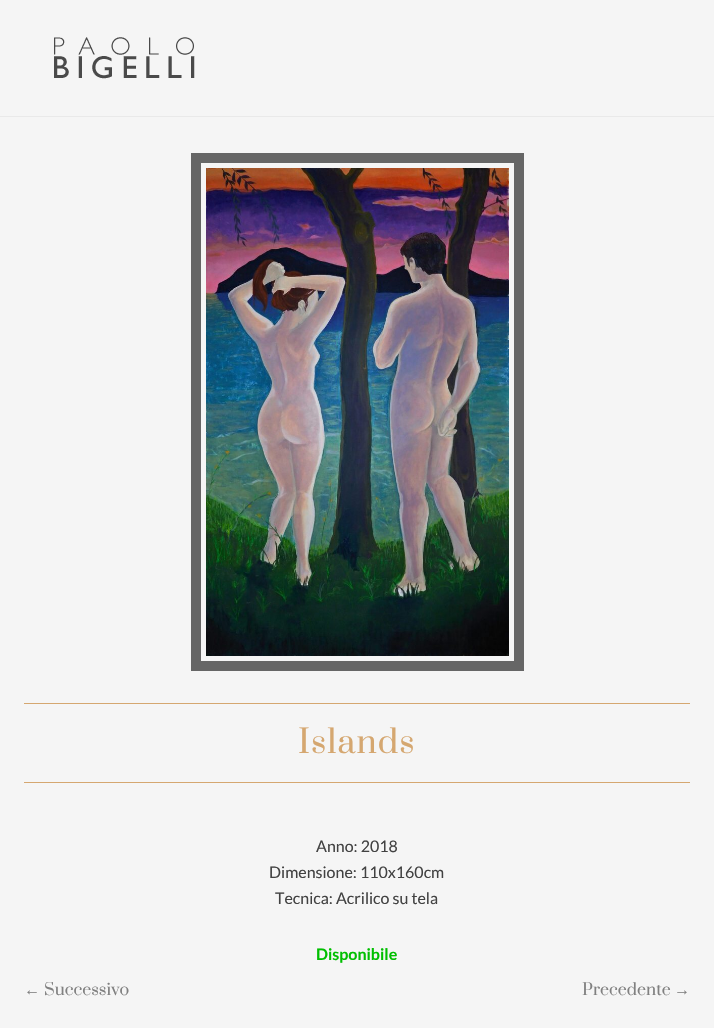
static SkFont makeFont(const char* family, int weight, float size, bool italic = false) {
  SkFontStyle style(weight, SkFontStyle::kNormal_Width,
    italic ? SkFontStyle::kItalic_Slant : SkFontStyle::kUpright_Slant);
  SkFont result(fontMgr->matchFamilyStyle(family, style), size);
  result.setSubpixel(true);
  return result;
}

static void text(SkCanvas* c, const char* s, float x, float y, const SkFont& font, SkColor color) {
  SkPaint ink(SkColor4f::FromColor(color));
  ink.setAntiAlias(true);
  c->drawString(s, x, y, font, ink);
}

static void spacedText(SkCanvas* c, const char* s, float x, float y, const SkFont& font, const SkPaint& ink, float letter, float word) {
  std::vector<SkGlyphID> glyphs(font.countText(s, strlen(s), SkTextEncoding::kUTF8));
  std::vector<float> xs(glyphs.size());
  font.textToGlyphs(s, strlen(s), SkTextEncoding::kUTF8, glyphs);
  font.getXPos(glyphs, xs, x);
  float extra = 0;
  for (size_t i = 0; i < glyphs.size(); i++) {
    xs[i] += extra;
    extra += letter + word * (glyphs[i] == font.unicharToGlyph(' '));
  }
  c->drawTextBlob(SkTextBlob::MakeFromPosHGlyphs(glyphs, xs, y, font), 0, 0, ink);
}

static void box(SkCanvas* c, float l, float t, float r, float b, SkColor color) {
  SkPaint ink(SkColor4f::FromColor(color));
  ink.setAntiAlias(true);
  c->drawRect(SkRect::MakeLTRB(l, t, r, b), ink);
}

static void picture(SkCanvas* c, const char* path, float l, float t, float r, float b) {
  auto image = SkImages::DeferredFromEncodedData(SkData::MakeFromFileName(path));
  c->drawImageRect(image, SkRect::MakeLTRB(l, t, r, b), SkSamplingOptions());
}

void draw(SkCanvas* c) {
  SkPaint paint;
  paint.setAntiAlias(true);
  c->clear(0xfff5f5f5);
  box(c, 0, 116, 714, 117, 0xffe9e9e9);
  picture(c, "img_01.png", 54, 37, 195, 79);
  paint.setStyle(SkPaint::kStroke_Style);
  paint.setStrokeWidth(10);
  paint.setColor(0xff666666);
  c->drawRect(SkRect::MakeLTRB(196, 158, 519, 666), paint);
  picture(c, "img_02.png", 206, 168, 509, 656);
  box(c, 24, 703, 690, 704, 0xffd5a770);
  box(c, 24, 782, 690, 783, 0xffd5a770);
  SkFont face1 = makeFont("Prata", 400, 32);
  paint.setStyle(SkPaint::kFill_Style);
  paint.setColor(0xffd5a770);
  spacedText(c, "Islands", 298, 753, face1, paint, 1, 0);
  SkFont face2 = makeFont("Lato", 400, 16);
  text(c, "Anno: 2018", 316, 852, face2, 0xff424242);
  text(c, "Dimensione: 110x160cm", 269, 878, face2, 0xff424242);
  text(c, "Tecnica: Acrilico su tela", 275, 904, face2, 0xff424242);
  SkFont face3 = makeFont("Lato", 700, 16);
  text(c, "Disponibile", 316, 960, face3, 0xff00bf00);
  SkFont face4 = makeFont("Liberation Serif", 400, 16);
  text(c, "←", 24, 995, face4, 0xff808080);
  SkFont face5 = makeFont("Prata", 400, 16);
  text(c, "Successivo", 44, 995, face5, 0xff808080);
  text(c, "Precedente", 582, 995, face5, 0xff808080);
  text(c, "→", 674, 995, face4, 0xff808080);
}
